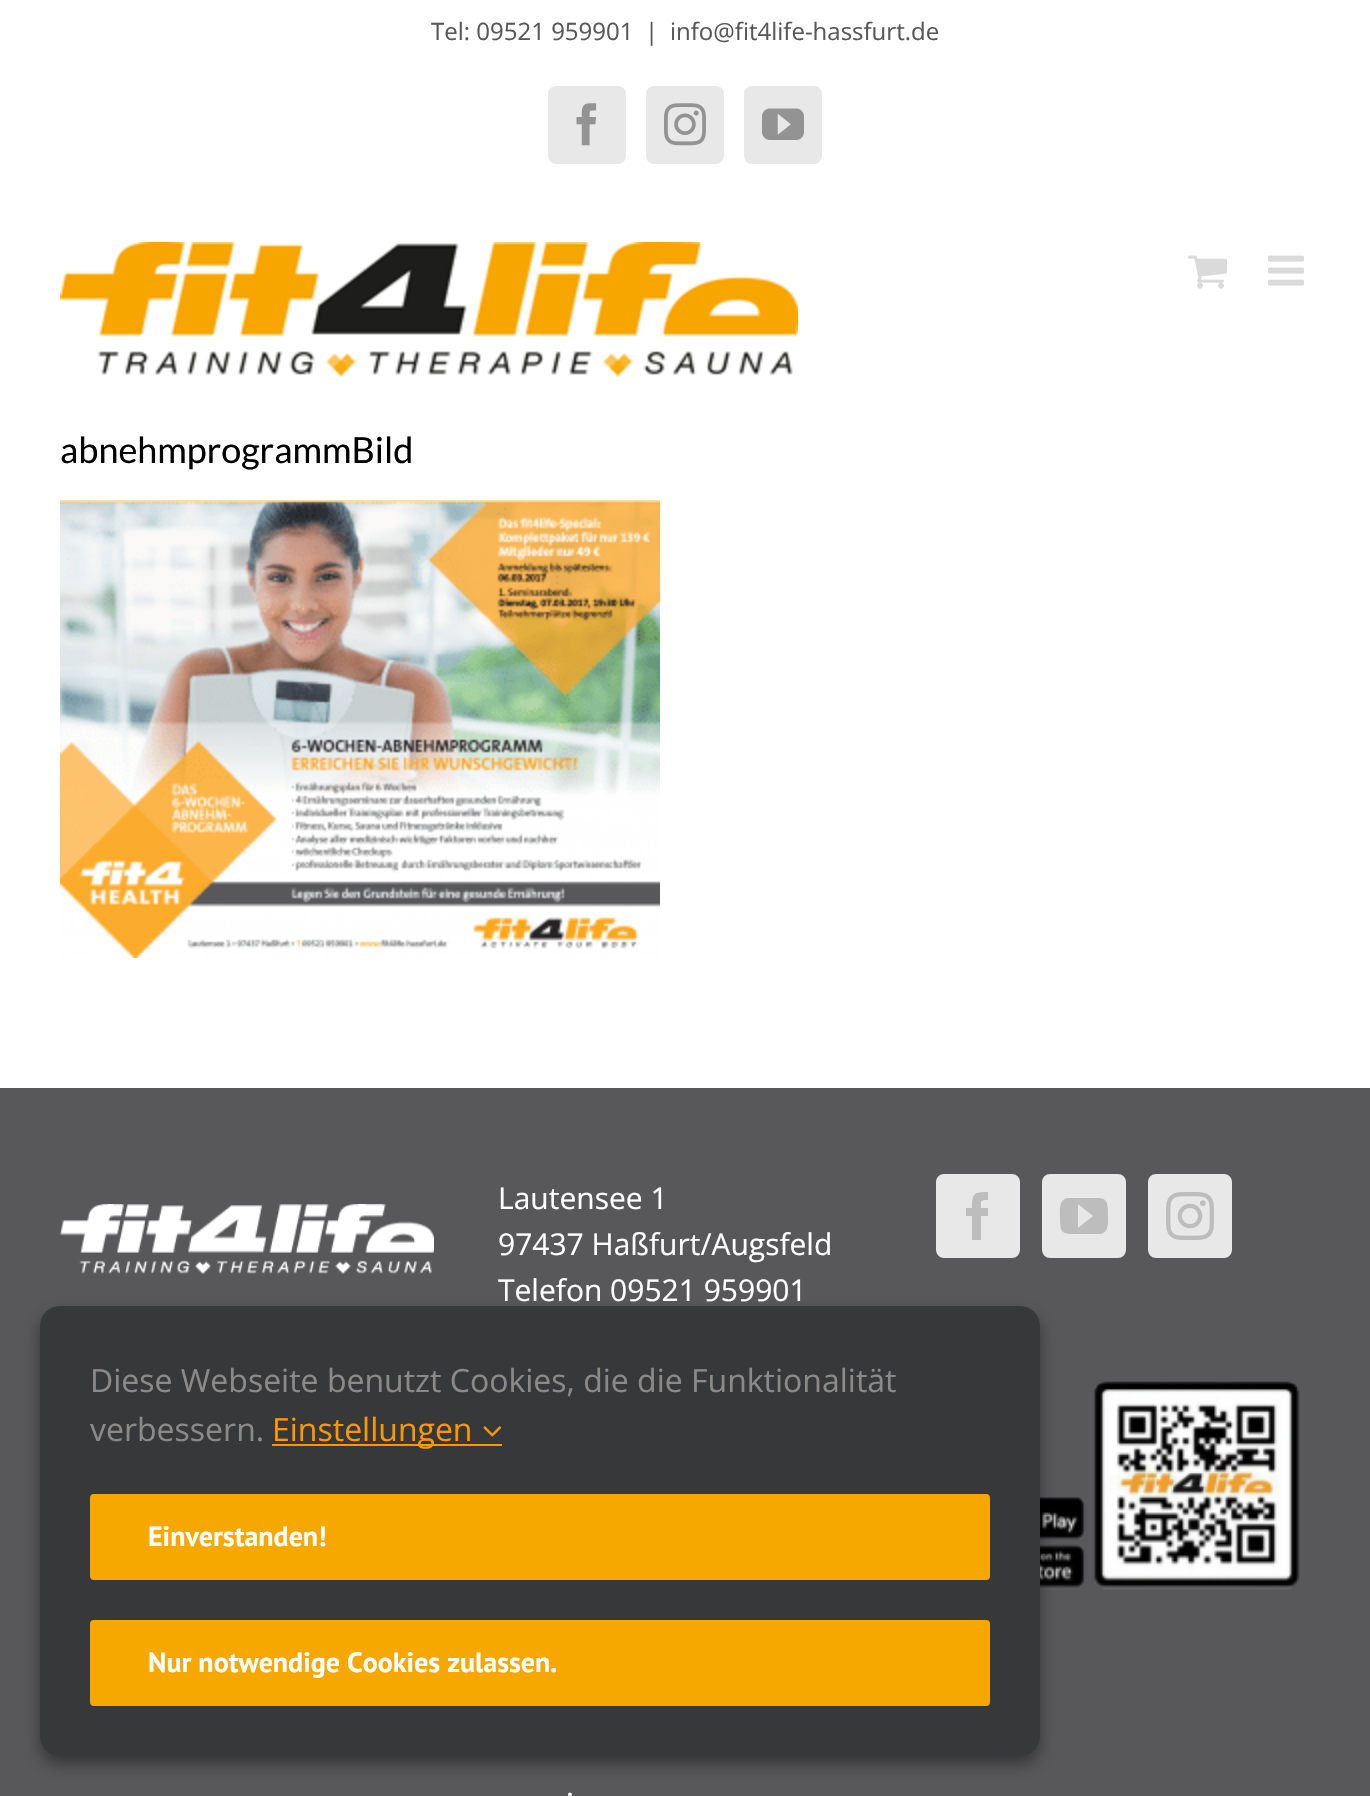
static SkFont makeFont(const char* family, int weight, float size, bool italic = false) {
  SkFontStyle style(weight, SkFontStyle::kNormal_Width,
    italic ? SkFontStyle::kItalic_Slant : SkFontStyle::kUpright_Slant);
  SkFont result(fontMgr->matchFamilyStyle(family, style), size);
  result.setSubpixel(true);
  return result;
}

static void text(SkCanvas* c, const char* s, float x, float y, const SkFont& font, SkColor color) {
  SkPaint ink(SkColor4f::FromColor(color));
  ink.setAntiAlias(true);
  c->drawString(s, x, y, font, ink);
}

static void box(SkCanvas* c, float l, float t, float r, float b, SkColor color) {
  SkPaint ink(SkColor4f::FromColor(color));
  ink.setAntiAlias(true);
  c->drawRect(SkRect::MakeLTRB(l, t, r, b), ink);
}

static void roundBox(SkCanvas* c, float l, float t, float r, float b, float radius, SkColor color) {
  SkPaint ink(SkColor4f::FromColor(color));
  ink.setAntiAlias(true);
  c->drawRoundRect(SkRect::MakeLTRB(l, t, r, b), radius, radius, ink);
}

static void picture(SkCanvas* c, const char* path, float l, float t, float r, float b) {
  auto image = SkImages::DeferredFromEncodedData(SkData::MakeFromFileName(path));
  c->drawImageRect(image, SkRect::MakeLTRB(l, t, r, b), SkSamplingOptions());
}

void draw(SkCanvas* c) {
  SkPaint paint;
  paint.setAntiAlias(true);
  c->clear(0xffffffff);
  SkFont face1 = makeFont("Open Sans", 400, 24);
  text(c, "Tel: 09521 959901", 431, 40, face1, 0xff58585a);
  text(c, "|", 645, 40, face1, 0xff58585a);
  text(c, "info@fit4life-hassfurt.de", 670, 40, face1, 0xff58585a);
  paint.setColor(0xffe8e8e8);
  c->drawRoundRect(SkRect::MakeLTRB(549, 87, 625, 163), 7, 7, paint);
  paint.setStyle(SkPaint::kStroke_Style);
  paint.setStrokeWidth(2);
  c->drawRoundRect(SkRect::MakeLTRB(549, 87, 625, 163), 7, 7, paint);
  picture(c, "img_01.png", 576, 103, 597, 146);
  paint.setStyle(SkPaint::kFill_Style);
  c->drawRoundRect(SkRect::MakeLTRB(647, 87, 723, 163), 7, 7, paint);
  paint.setStyle(SkPaint::kStroke_Style);
  c->drawRoundRect(SkRect::MakeLTRB(647, 87, 723, 163), 7, 7, paint);
  picture(c, "img_02.png", 664, 103, 706, 146);
  paint.setStyle(SkPaint::kFill_Style);
  c->drawRoundRect(SkRect::MakeLTRB(745, 87, 821, 163), 7, 7, paint);
  paint.setStyle(SkPaint::kStroke_Style);
  c->drawRoundRect(SkRect::MakeLTRB(745, 87, 821, 163), 7, 7, paint);
  picture(c, "img_03.png", 762, 108, 804, 140);
  picture(c, "img_04.png", 60, 242, 798, 377);
  picture(c, "img_05.png", 1188, 255, 1227, 289);
  picture(c, "img_06.png", 1268, 255, 1304, 286);
  SkFont face2 = makeFont("Lato", 400, 36);
  text(c, "abnehmprogrammBild", 60, 463, face2, 0xff000000);
  picture(c, "img_07.png", 60, 500, 660, 958);
  box(c, 0, 1088, 1370, 1796, 0xff58585a);
  picture(c, "img_08.png", 60, 1204, 434, 1274);
  SkFont face3 = makeFont("Open Sans", 400, 30);
  text(c, "Lautensee 1", 498, 1209, face3, 0xffffffff);
  text(c, "97437 Haßfurt/Augsfeld", 498, 1255, face3, 0xffffffff);
  text(c, "Telefon 09521 959901", 498, 1301, face3, 0xffffffff);
  text(c, "·", 566, 1805, face3, 0xffffffff);
  paint.setStyle(SkPaint::kFill_Style);
  c->drawRoundRect(SkRect::MakeLTRB(937, 1175, 1019, 1257), 7, 7, paint);
  paint.setStyle(SkPaint::kStroke_Style);
  c->drawRoundRect(SkRect::MakeLTRB(937, 1175, 1019, 1257), 7, 7, paint);
  paint.setStyle(SkPaint::kFill_Style);
  paint.setColor(0xffbebdbd);
  c->drawPath(SkPathBuilder().moveTo(981, 1240).lineTo(972, 1240).lineTo(972, 1216).lineTo(966, 1216).lineTo(966, 1208).lineTo(972, 1208).cubicTo(972, 1193, 974, 1192, 988, 1192).lineTo(988, 1200).cubicTo(980, 1200, 981, 1200, 981, 1208).lineTo(988, 1208).lineTo(988, 1216).lineTo(981, 1216).close().detach(), paint);
  paint.setColor(0xffe8e8e8);
  c->drawRoundRect(SkRect::MakeLTRB(1043, 1175, 1125, 1257), 7, 7, paint);
  paint.setStyle(SkPaint::kStroke_Style);
  c->drawRoundRect(SkRect::MakeLTRB(1043, 1175, 1125, 1257), 7, 7, paint);
  paint.setStyle(SkPaint::kFill_Style);
  paint.setColor(0xffbebdbd);
  c->drawPath(SkPathBuilder().moveTo(1099, 1198).lineTo(1068, 1198).cubicTo(1059, 1199, 1060, 1209, 1060, 1216).cubicTo(1060, 1234, 1061, 1234, 1079, 1234).lineTo(1100, 1234).cubicTo(1109, 1233, 1108, 1223, 1108, 1216).cubicTo(1108, 1209, 1109, 1198, 1099, 1198).close().moveTo(1078, 1228).lineTo(1078, 1204).lineTo(1093, 1216).close().detach(), paint);
  paint.setColor(0xffe8e8e8);
  c->drawRoundRect(SkRect::MakeLTRB(1149, 1175, 1231, 1257), 7, 7, paint);
  paint.setStyle(SkPaint::kStroke_Style);
  c->drawRoundRect(SkRect::MakeLTRB(1149, 1175, 1231, 1257), 7, 7, paint);
  picture(c, "img_09.png", 1166, 1192, 1214, 1240);
  picture(c, "img_10.png", 1040, 1381, 1300, 1590);
  paint.setStyle(SkPaint::kFill_Style);
  paint.setColor(0x66000000);
  paint.setMaskFilter(SkMaskFilter::MakeBlur(kNormal_SkBlurStyle, 8));
  c->drawRoundRect(SkRect::MakeLTRB(40, 1314, 1040, 1764), 20, 20, paint);
  paint.setMaskFilter(nullptr);
  roundBox(c, 40, 1306, 1040, 1756, 20, 0xff363839);
  SkFont face4 = makeFont("Open Sans", 400, 32);
  text(c, "Diese Webseite benutzt Cookies, die die Funktionalität", 90, 1392, face4, 0xff8c8989);
  text(c, "verbessern.", 90, 1441, face4, 0xff8c8989);
  box(c, 272, 1444, 502, 1446, 0xffff9800);
  text(c, "Einstellungen", 272, 1441, face4, 0xffff9800);
  picture(c, "img_11.png", 483, 1426, 502, 1437);
  roundBox(c, 90, 1494, 990, 1580, 4, 0xfff6a800);
  SkFont face5 = makeFont("PT Sans", 700, 28);
  text(c, "Einverstanden!", 148, 1546, face5, 0xffffffff);
  roundBox(c, 90, 1620, 990, 1706, 4, 0xfff6a800);
  text(c, "Nur notwendige Cookies zulassen.", 148, 1672, face5, 0xffffffff);
}
